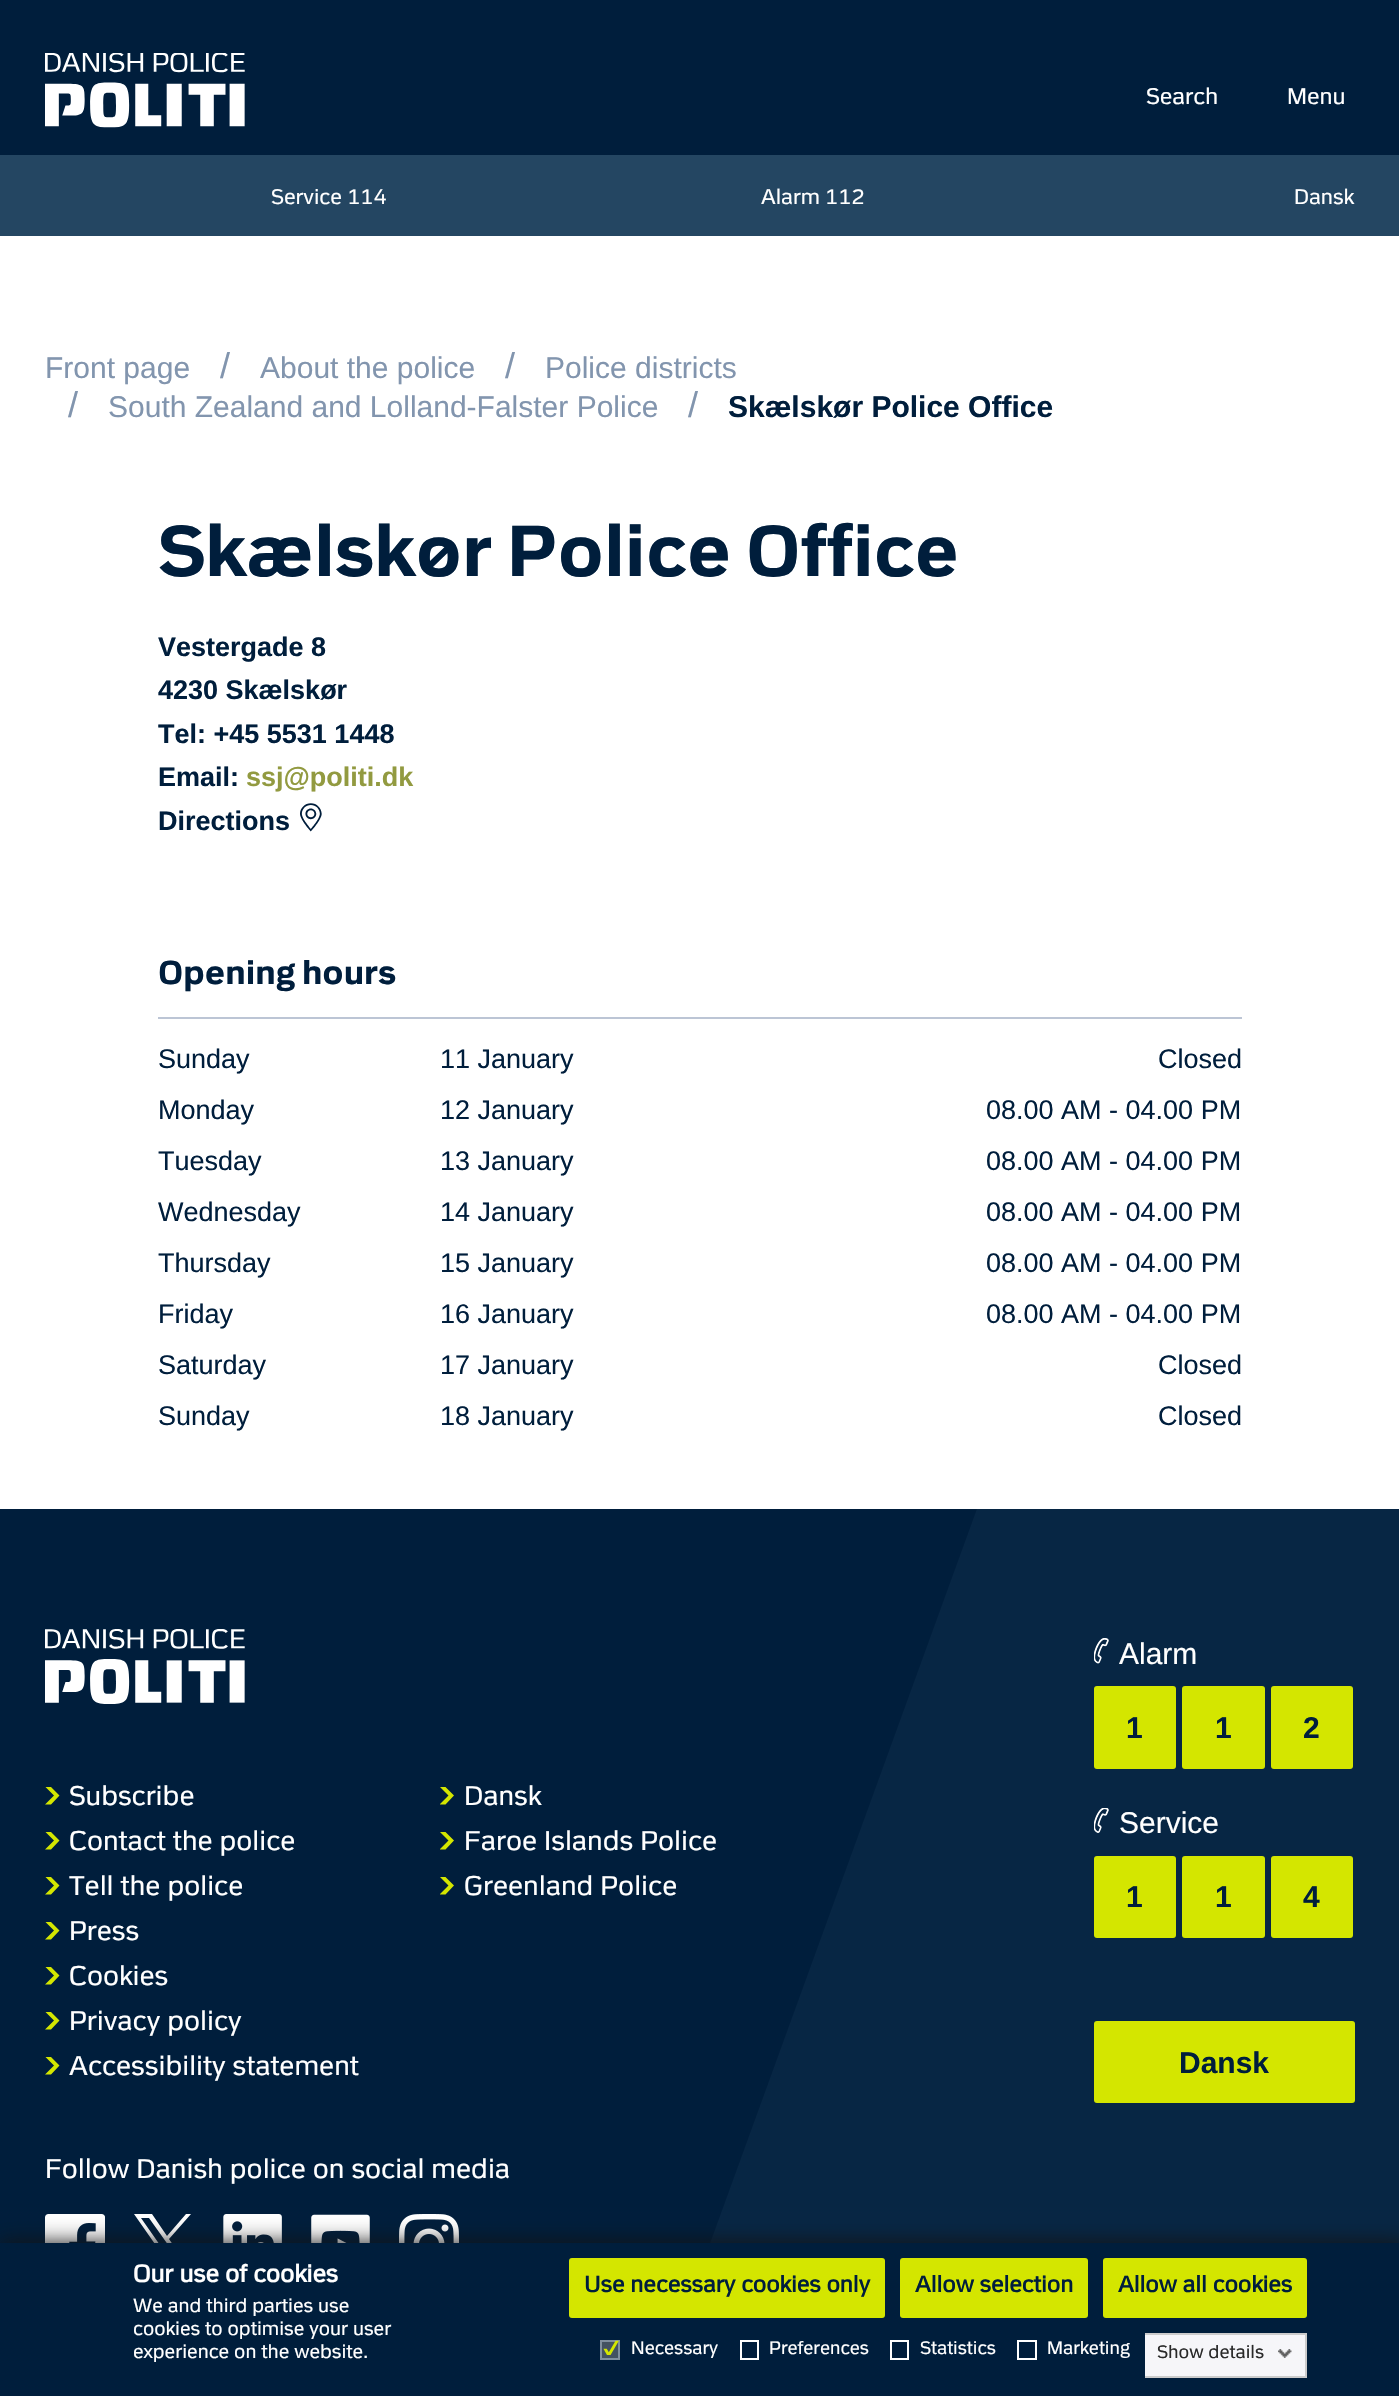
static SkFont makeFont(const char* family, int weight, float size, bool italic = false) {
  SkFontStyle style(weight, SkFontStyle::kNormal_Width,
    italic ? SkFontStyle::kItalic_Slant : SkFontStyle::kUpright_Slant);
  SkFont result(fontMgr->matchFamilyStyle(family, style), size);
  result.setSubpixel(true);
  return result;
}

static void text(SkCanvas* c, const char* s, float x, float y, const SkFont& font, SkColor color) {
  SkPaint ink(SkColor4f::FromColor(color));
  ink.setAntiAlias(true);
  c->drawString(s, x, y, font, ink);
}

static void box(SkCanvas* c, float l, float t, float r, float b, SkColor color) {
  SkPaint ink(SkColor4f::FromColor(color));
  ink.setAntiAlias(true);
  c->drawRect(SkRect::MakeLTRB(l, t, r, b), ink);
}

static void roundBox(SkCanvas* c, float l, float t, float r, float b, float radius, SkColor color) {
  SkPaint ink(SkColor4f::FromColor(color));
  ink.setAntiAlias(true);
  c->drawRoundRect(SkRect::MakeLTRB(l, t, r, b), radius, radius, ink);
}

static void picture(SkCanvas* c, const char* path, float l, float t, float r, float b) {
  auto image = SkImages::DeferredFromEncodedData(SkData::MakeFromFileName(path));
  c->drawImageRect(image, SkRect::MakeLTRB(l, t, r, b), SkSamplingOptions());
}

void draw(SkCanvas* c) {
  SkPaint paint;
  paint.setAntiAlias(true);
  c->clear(0xffffffff);
  box(c, 0, 0, 1399, 155, 0xff001e3c);
  picture(c, "img_01.png", 45, 53, 245, 128);
  SkFont face1 = makeFont("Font", 400, 22.5f);
  text(c, "Search", 1146, 104, face1, 0xffffffff);
  text(c, "Menu", 1287, 104, face1, 0xffffffff);
  box(c, 0, 155, 1399, 236, 0xff244662);
  SkFont face2 = makeFont("Font", 400, 21);
  text(c, "Service 114", 271, 204, face2, 0xffffffff);
  text(c, "Alarm 112", 761, 204, face2, 0xffffffff);
  text(c, "Dansk", 1294, 204, face2, 0xffffffff);
  SkFont face3 = makeFont("Liberation Sans", 400, 30);
  text(c, "Front page", 45, 378, face3, 0xff8295ae);
  SkFont face4 = makeFont("Liberation Sans", 400, 36);
  text(c, "/", 220, 378, face4, 0xff8295ae);
  text(c, "About the police", 260, 378, face3, 0xff8295ae);
  text(c, "/", 505, 378, face4, 0xff8295ae);
  text(c, "Police districts", 545, 378, face3, 0xff8295ae);
  text(c, "/", 68, 417, face4, 0xff8295ae);
  text(c, "South Zealand and Lolland-Falster Police", 108, 417, face3, 0xff8295ae);
  text(c, "/", 688, 417, face4, 0xff8295ae);
  SkFont face5 = makeFont("Liberation Sans", 700, 30);
  text(c, "Skælskør Police Office", 728, 417, face5, 0xff001e3c);
  SkFont face6 = makeFont("Font", 700, 72);
  text(c, "Skælskør Police Office", 158, 576, face6, 0xff001e3c);
  SkFont face7 = makeFont("Liberation Sans", 700, 27);
  text(c, "Vestergade 8", 158, 656, face7, 0xff001e3c);
  text(c, "4230 Skælskør", 158, 699, face7, 0xff001e3c);
  text(c, "Tel: +45 5531 1448", 158, 743, face7, 0xff001e3c);
  text(c, "Email:", 158, 786, face7, 0xff001e3c);
  text(c, "ssj@politi.dk", 246, 786, face7, 0xff929a40);
  text(c, "Directions", 158, 830, face7, 0xff001e3c);
  picture(c, "img_02.png", 300, 803, 322, 832);
  box(c, 158, 1017, 1242, 1019, 0xffbcc5d5);
  SkFont face8 = makeFont("Font", 700, 33);
  text(c, "Opening hours", 158, 984, face8, 0xff001e3c);
  SkFont face9 = makeFont("Liberation Sans", 400, 27);
  text(c, "Sunday", 158, 1068, face9, 0xff001e3c);
  text(c, "11 January", 440, 1068, face9, 0xff001e3c);
  text(c, "Closed", 1158, 1068, face9, 0xff001e3c);
  text(c, "Monday", 158, 1119, face9, 0xff001e3c);
  text(c, "12 January", 440, 1119, face9, 0xff001e3c);
  text(c, "08.00 AM - 04.00 PM", 986, 1119, face9, 0xff001e3c);
  text(c, "Tuesday", 158, 1170, face9, 0xff001e3c);
  text(c, "13 January", 440, 1170, face9, 0xff001e3c);
  text(c, "08.00 AM - 04.00 PM", 986, 1170, face9, 0xff001e3c);
  text(c, "Wednesday", 158, 1221, face9, 0xff001e3c);
  text(c, "14 January", 440, 1221, face9, 0xff001e3c);
  text(c, "08.00 AM - 04.00 PM", 986, 1221, face9, 0xff001e3c);
  text(c, "Thursday", 158, 1272, face9, 0xff001e3c);
  text(c, "15 January", 440, 1272, face9, 0xff001e3c);
  text(c, "08.00 AM - 04.00 PM", 986, 1272, face9, 0xff001e3c);
  text(c, "Friday", 158, 1323, face9, 0xff001e3c);
  text(c, "16 January", 440, 1323, face9, 0xff001e3c);
  text(c, "08.00 AM - 04.00 PM", 986, 1323, face9, 0xff001e3c);
  text(c, "Saturday", 158, 1374, face9, 0xff001e3c);
  text(c, "17 January", 440, 1374, face9, 0xff001e3c);
  text(c, "Closed", 1158, 1374, face9, 0xff001e3c);
  text(c, "Sunday", 158, 1425, face9, 0xff001e3c);
  text(c, "18 January", 440, 1425, face9, 0xff001e3c);
  text(c, "Closed", 1158, 1425, face9, 0xff001e3c);
  box(c, 0, 1509, 977, 2243, 0xff001e3c);
  paint.setColor(0xff072644);
  c->drawPath(SkPathBuilder().moveTo(977, 1509).lineTo(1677, 1509).lineTo(1362, 2373).lineTo(663, 2373).close().detach(), paint);
  picture(c, "img_03.png", 45, 1629, 245, 1704);
  c->save();
  c->clipRect(SkRect::MakeLTRB(45, 1787, 60, 1805));
  paint.setColor(0xffd4e600);
  c->drawPath(SkPathBuilder().moveTo(45, 1786.5f).lineTo(54, 1795.5f).lineTo(45, 1804.5f).lineTo(51, 1804.5f).lineTo(59.5f, 1795.5f).lineTo(50.5f, 1786.5f).close().detach(), paint);
  c->restore();
  SkFont face10 = makeFont("Font", 400, 27);
  text(c, "Subscribe", 69, 1805, face10, 0xffffffff);
  c->save();
  c->clipRect(SkRect::MakeLTRB(45, 1832, 60, 1850));
  c->drawPath(SkPathBuilder().moveTo(45, 1831.5f).lineTo(54, 1840.5f).lineTo(45, 1849.5f).lineTo(51, 1849.5f).lineTo(59.5f, 1840.5f).lineTo(50.5f, 1831.5f).close().detach(), paint);
  c->restore();
  text(c, "Contact the police", 69, 1850, face10, 0xffffffff);
  c->save();
  c->clipRect(SkRect::MakeLTRB(45, 1877, 60, 1895));
  c->drawPath(SkPathBuilder().moveTo(45, 1876.5f).lineTo(54, 1885.5f).lineTo(45, 1894.5f).lineTo(51, 1894.5f).lineTo(59.5f, 1885.5f).lineTo(50.5f, 1876.5f).close().detach(), paint);
  c->restore();
  text(c, "Tell the police", 69, 1895, face10, 0xffffffff);
  c->save();
  c->clipRect(SkRect::MakeLTRB(45, 1922, 60, 1940));
  c->drawPath(SkPathBuilder().moveTo(45, 1921.5f).lineTo(54, 1930.5f).lineTo(45, 1939.5f).lineTo(51, 1939.5f).lineTo(59.5f, 1930.5f).lineTo(50.5f, 1921.5f).close().detach(), paint);
  c->restore();
  text(c, "Press", 69, 1940, face10, 0xffffffff);
  c->save();
  c->clipRect(SkRect::MakeLTRB(45, 1967, 60, 1985));
  c->drawPath(SkPathBuilder().moveTo(45, 1966.5f).lineTo(54, 1975.5f).lineTo(45, 1984.5f).lineTo(51, 1984.5f).lineTo(59.5f, 1975.5f).lineTo(50.5f, 1966.5f).close().detach(), paint);
  c->restore();
  text(c, "Cookies", 69, 1985, face10, 0xffffffff);
  c->save();
  c->clipRect(SkRect::MakeLTRB(45, 2012, 60, 2030));
  c->drawPath(SkPathBuilder().moveTo(45, 2011.5f).lineTo(54, 2020.5f).lineTo(45, 2029.5f).lineTo(51, 2029.5f).lineTo(59.5f, 2020.5f).lineTo(50.5f, 2011.5f).close().detach(), paint);
  c->restore();
  text(c, "Privacy policy", 69, 2030, face10, 0xffffffff);
  c->save();
  c->clipRect(SkRect::MakeLTRB(45, 2057, 60, 2075));
  c->drawPath(SkPathBuilder().moveTo(45, 2056.5f).lineTo(54, 2065.5f).lineTo(45, 2074.5f).lineTo(51, 2074.5f).lineTo(59.5f, 2065.5f).lineTo(50.5f, 2056.5f).close().detach(), paint);
  c->restore();
  text(c, "Accessibility statement", 69, 2075, face10, 0xffffffff);
  c->save();
  c->clipRect(SkRect::MakeLTRB(440, 1787, 455, 1805));
  c->drawPath(SkPathBuilder().moveTo(439.5f, 1786.5f).lineTo(448.5f, 1795.5f).lineTo(439.5f, 1804.5f).lineTo(445.5f, 1804.5f).lineTo(454, 1795.5f).lineTo(445, 1786.5f).close().detach(), paint);
  c->restore();
  text(c, "Dansk", 464, 1805, face10, 0xffffffff);
  c->save();
  c->clipRect(SkRect::MakeLTRB(440, 1832, 455, 1850));
  c->drawPath(SkPathBuilder().moveTo(439.5f, 1831.5f).lineTo(448.5f, 1840.5f).lineTo(439.5f, 1849.5f).lineTo(445.5f, 1849.5f).lineTo(454, 1840.5f).lineTo(445, 1831.5f).close().detach(), paint);
  c->restore();
  text(c, "Faroe Islands Police", 464, 1850, face10, 0xffffffff);
  c->save();
  c->clipRect(SkRect::MakeLTRB(440, 1877, 455, 1895));
  c->drawPath(SkPathBuilder().moveTo(439.5f, 1876.5f).lineTo(448.5f, 1885.5f).lineTo(439.5f, 1894.5f).lineTo(445.5f, 1894.5f).lineTo(454, 1885.5f).lineTo(445, 1876.5f).close().detach(), paint);
  c->restore();
  text(c, "Greenland Police", 464, 1895, face10, 0xffffffff);
  text(c, "Follow Danish police on social media", 45, 2178, face10, 0xffffffff);
  picture(c, "img_04.png", 45, 2214, 105, 2243);
  paint.setColor(0xffffffff);
  c->drawPath(SkPathBuilder().moveTo(169, 2239).lineTo(191, 2214).lineTo(186, 2214).lineTo(167, 2236).lineTo(152, 2214).lineTo(134, 2214).lineTo(157, 2247).lineTo(134, 2274).lineTo(139, 2274).lineTo(159, 2251).lineTo(175, 2274).lineTo(193, 2274).close().moveTo(162, 2248).lineTo(141, 2218).lineTo(149, 2218).lineTo(186, 2270).lineTo(178, 2270).close().detach(), paint);
  picture(c, "img_05.png", 223, 2214, 282, 2243);
  picture(c, "img_06.png", 311, 2214, 370, 2243);
  picture(c, "img_07.png", 399, 2214, 459, 2243);
  picture(c, "img_08.png", 1094, 1638, 1109, 1664);
  text(c, "Alarm", 1119, 1664, face3, 0xffffffff);
  roundBox(c, 1094, 1686, 1176, 1769, 3, 0xffd4e600);
  text(c, "1", 1126, 1738, face5, 0xff001e3c);
  roundBox(c, 1182, 1686, 1265, 1769, 3, 0xffd4e600);
  text(c, "1", 1215, 1738, face5, 0xff001e3c);
  roundBox(c, 1271, 1686, 1353, 1769, 3, 0xffd4e600);
  text(c, "2", 1303, 1738, face5, 0xff001e3c);
  picture(c, "img_09.png", 1094, 1808, 1109, 1833);
  text(c, "Service", 1119, 1833, face3, 0xffffffff);
  roundBox(c, 1094, 1856, 1176, 1938, 3, 0xffd4e600);
  text(c, "1", 1126, 1907, face5, 0xff001e3c);
  roundBox(c, 1182, 1856, 1265, 1938, 3, 0xffd4e600);
  text(c, "1", 1215, 1907, face5, 0xff001e3c);
  roundBox(c, 1271, 1856, 1353, 1938, 3, 0xffd4e600);
  text(c, "4", 1303, 1907, face5, 0xff001e3c);
  roundBox(c, 1094, 2021, 1355, 2103, 3, 0xffd4e600);
  text(c, "Dansk", 1179, 2073, face5, 0xff001e3c);
  paint.setColor(0xff121212);
  paint.setMaskFilter(SkMaskFilter::MakeBlur(kNormal_SkBlurStyle, 10.5f));
  c->drawRect(SkRect::MakeLTRB(0, 2243, 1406, 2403), paint);
  paint.setMaskFilter(nullptr);
  box(c, 0, 2243, 1399, 2396, 0xff001e3c);
  SkFont face11 = makeFont("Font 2", 700, 24);
  text(c, "Our use of cookies", 133, 2282, face11, 0xffffffff);
  SkFont face12 = makeFont("Font", 400, 19);
  text(c, "We and third parties use", 133, 2312, face12, 0xffffffff);
  text(c, "cookies to optimise your user", 133, 2335, face12, 0xffffffff);
  text(c, "experience on the website.", 133, 2358, face12, 0xffffffff);
  roundBox(c, 569, 2258, 885, 2318, 3, 0xffd4e600);
  SkFont face13 = makeFont("Font 2", 700, 22.5f);
  text(c, "Use necessary cookies only", 584, 2292, face13, 0xff001e3c);
  roundBox(c, 900, 2258, 1088, 2318, 3, 0xffd4e600);
  text(c, "Allow selection", 915, 2292, face13, 0xff001e3c);
  roundBox(c, 1103, 2258, 1307, 2318, 3, 0xffd4e600);
  text(c, "Allow all cookies", 1118, 2292, face13, 0xff001e3c);
  paint.setColor(0xff435261);
  c->drawRect(SkRect::MakeLTRB(601, 2341, 619, 2359), paint);
  paint.setStyle(SkPaint::kStroke_Style);
  paint.setStrokeWidth(2);
  paint.setColor(0xff808f9e);
  c->drawRect(SkRect::MakeLTRB(601, 2341, 619, 2359), paint);
  picture(c, "img_10.png", 603, 2340, 619, 2355);
  SkFont face14 = makeFont("Font", 400, 18);
  text(c, "Necessary", 631, 2354, face14, 0xffffffff);
  paint.setColor(0xffffffff);
  c->drawRect(SkRect::MakeLTRB(741, 2341, 758, 2359), paint);
  text(c, "Preferences", 769, 2354, face14, 0xffffffff);
  c->drawRect(SkRect::MakeLTRB(891, 2341, 908, 2359), paint);
  text(c, "Statistics", 920, 2354, face14, 0xffffffff);
  c->drawRect(SkRect::MakeLTRB(1018, 2341, 1036, 2359), paint);
  text(c, "Marketing", 1047, 2354, face14, 0xffffffff);
  box(c, 1145, 2335, 1305, 2376, 0xfff6f6f9);
  box(c, 1145, 2333, 1307, 2335, 0xffcccccc);
  box(c, 1305, 2333, 1307, 2378, 0xffcccccc);
  box(c, 1145, 2376, 1307, 2378, 0xffcccccc);
  picture(c, "img_11.png", 1278, 2349, 1292, 2358);
  text(c, "Show details", 1157, 2358, face14, 0xff2a2a2a);
}
